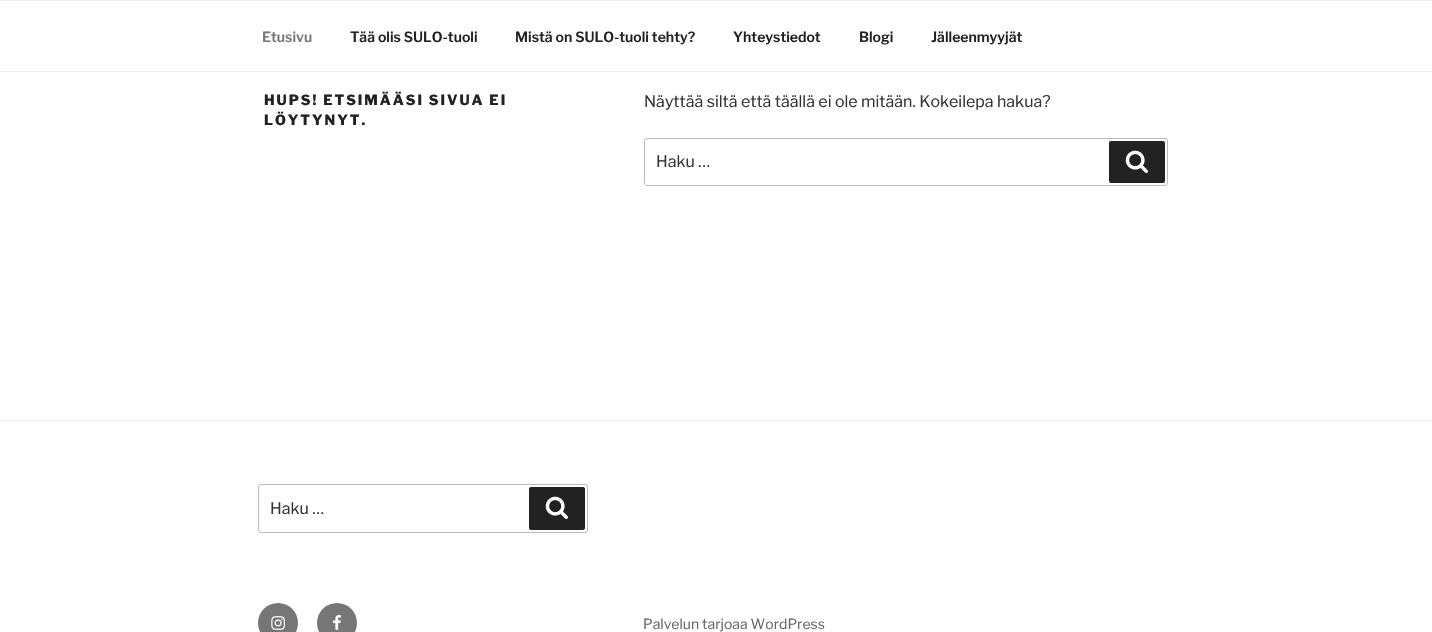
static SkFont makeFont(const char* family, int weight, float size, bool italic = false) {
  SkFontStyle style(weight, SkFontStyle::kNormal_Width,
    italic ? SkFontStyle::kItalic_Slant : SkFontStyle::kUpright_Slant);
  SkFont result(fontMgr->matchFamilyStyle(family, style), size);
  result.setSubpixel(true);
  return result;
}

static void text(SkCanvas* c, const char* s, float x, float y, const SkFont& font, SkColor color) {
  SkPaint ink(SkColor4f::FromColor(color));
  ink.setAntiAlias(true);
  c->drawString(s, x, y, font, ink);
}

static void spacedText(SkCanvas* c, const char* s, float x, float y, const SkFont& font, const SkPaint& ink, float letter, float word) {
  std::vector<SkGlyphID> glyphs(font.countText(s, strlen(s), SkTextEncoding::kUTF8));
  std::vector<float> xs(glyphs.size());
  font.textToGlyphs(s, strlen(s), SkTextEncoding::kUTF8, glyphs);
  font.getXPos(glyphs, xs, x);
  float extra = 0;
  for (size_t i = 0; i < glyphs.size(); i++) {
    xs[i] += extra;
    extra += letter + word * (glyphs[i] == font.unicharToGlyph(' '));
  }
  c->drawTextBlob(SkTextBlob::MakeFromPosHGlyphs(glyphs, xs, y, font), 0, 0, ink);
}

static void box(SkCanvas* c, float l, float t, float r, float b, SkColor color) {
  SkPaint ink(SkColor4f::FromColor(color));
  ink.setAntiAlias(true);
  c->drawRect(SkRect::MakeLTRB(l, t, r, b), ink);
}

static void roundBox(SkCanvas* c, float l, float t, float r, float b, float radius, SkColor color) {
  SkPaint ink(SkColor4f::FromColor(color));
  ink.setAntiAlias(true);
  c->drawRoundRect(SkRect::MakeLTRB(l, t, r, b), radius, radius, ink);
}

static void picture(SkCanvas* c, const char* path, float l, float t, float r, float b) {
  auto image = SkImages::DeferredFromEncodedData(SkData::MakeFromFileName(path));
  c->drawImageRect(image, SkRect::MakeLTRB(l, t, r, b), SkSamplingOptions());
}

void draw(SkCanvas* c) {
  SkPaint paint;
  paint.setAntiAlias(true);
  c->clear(0xffffffff);
  box(c, 0, 0, 1432, 1, 0xffeeeeee);
  box(c, 0, 71, 1432, 72, 0xffeeeeee);
  SkFont face1 = makeFont("Libre Franklin", 600, 14);
  text(c, "Etusivu", 262, 42, face1, 0xff767676);
  text(c, "Tää olis SULO-tuoli", 350, 42, face1, 0xff222222);
  text(c, "Mistä on SULO-tuoli tehty?", 515, 42, face1, 0xff222222);
  text(c, "Yhteystiedot", 733, 42, face1, 0xff222222);
  text(c, "Blogi", 859, 42, face1, 0xff222222);
  text(c, "Jälleenmyyjät", 931, 42, face1, 0xff222222);
  SkFont face2 = makeFont("Libre Franklin", 800, 14);
  paint.setColor(0xff222222);
  spacedText(c, "HUPS! ETSIMÄÄSI SIVUA EI", 264, 105, face2, paint, 2, 0);
  spacedText(c, "LÖYTYNYT.", 264, 125, face2, paint, 2, 0);
  SkFont face3 = makeFont("Libre Franklin", 400, 16);
  text(c, "Näyttää siltä että täällä ei ole mitään. Kokeilepa hakua?", 644, 107, face3, 0xff333333);
  paint.setStyle(SkPaint::kStroke_Style);
  paint.setStrokeWidth(1);
  paint.setColor(0xffbbbbbb);
  c->drawRoundRect(SkRect::MakeLTRB(644.5f, 138.5f, 1167.5f, 185.5f), 2.5f, 2.5f, paint);
  text(c, "Haku …", 656, 167, face3, 0xff333333);
  roundBox(c, 1109, 141, 1165, 183, 2, 0xff222222);
  picture(c, "img_01.png", 1125, 150, 1148, 173);
  box(c, 0, 420, 1432, 421, 0xffeeeeee);
  c->drawRoundRect(SkRect::MakeLTRB(258.5f, 484.5f, 587.5f, 532.5f), 2.5f, 2.5f, paint);
  text(c, "Haku …", 270, 514, face3, 0xff333333);
  roundBox(c, 529, 487, 585, 530, 2, 0xff222222);
  picture(c, "img_01.png", 545, 496, 568, 519);
  paint.setStyle(SkPaint::kFill_Style);
  paint.setColor(0xff767676);
  c->drawCircle(278, 623, 20, paint);
  picture(c, "img_02.png", 271, 616, 285, 630);
  c->drawCircle(337, 623, 20, paint);
  picture(c, "img_03.png", 333, 615, 341, 630);
  SkFont face4 = makeFont("Libre Franklin", 400, 14);
  text(c, "Palvelun tarjoaa WordPress", 643, 629, face4, 0xff666666);
}
